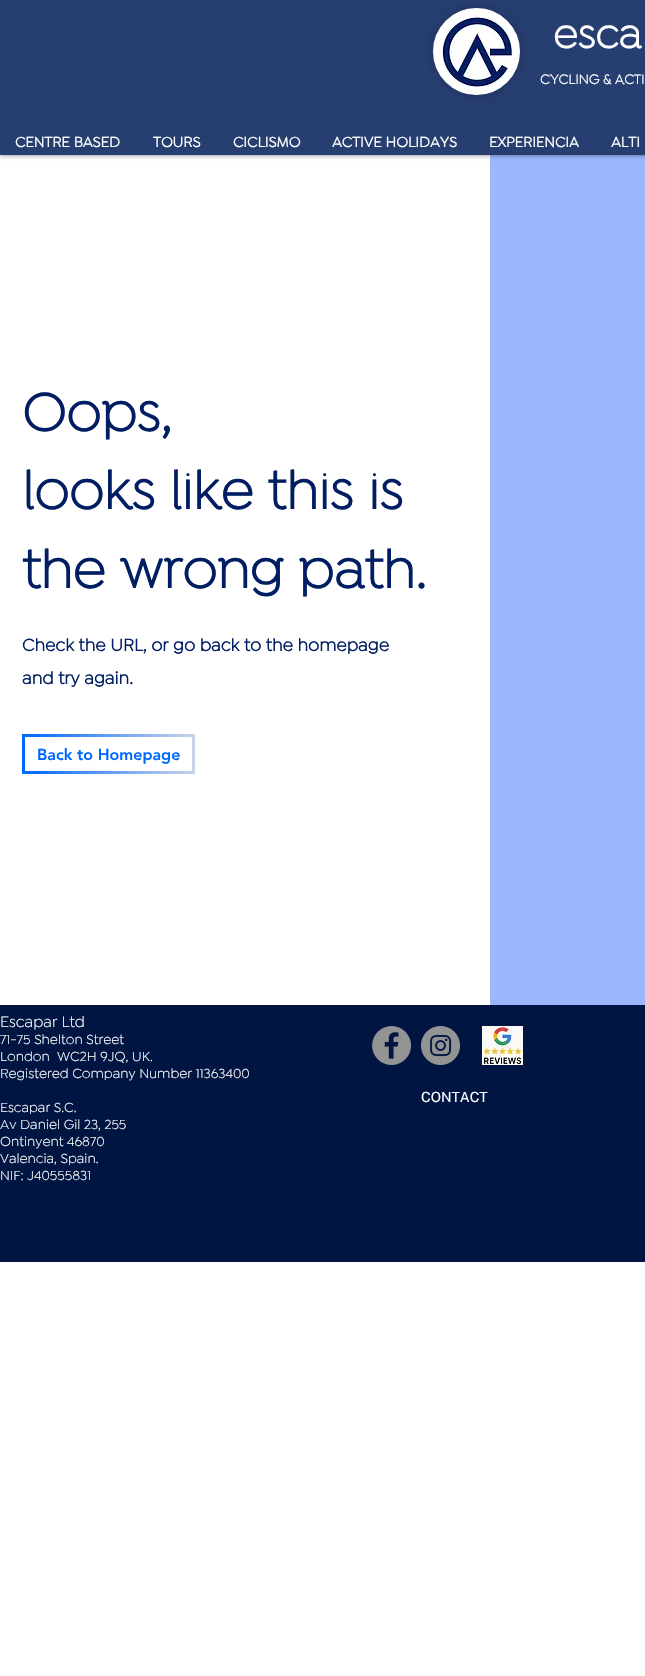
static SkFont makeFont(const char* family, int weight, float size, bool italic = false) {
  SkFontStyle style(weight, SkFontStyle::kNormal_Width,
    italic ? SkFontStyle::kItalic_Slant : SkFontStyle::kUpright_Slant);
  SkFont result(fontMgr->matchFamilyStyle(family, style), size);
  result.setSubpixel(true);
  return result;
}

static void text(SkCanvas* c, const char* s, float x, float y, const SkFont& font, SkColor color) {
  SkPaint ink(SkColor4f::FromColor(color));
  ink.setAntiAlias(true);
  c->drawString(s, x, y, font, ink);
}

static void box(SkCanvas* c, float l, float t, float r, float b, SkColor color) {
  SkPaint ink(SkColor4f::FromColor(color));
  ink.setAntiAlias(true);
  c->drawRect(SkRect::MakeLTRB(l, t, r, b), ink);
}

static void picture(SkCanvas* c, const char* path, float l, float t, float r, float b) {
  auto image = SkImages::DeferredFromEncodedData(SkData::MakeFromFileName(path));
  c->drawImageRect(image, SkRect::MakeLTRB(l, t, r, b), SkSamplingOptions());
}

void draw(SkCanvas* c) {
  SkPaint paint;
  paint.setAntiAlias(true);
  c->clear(0xffffffff);
  box(c, 490, 155, 645, 1005, 0xff9bb8ff);
  paint.setColor(0x80000000);
  paint.setMaskFilter(SkMaskFilter::MakeBlur(kNormal_SkBlurStyle, 2.5f));
  c->drawRect(SkRect::MakeLTRB(0, 0, 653, 155), paint);
  paint.setMaskFilter(nullptr);
  box(c, 0, 0, 645, 155, 0xff273e71);
  paint.setColor(0x33000000);
  paint.setMaskFilter(SkMaskFilter::MakeBlur(kNormal_SkBlurStyle, 7));
  c->drawRoundRect(SkRect::MakeLTRB(433, 8, 520, 95), 43.5f, 43.5f, paint);
  paint.setMaskFilter(nullptr);
  paint.setColor(0xffffffff);
  c->drawCircle(476.5f, 51.5f, 40.5f, paint);
  paint.setStyle(SkPaint::kStroke_Style);
  paint.setStrokeWidth(6);
  c->drawCircle(476.5f, 51.5f, 40.5f, paint);
  picture(c, "img_01.png", 439, 14, 514, 89);
  SkFont face1 = makeFont("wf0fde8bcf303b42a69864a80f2", 700, 42);
  text(c, "esca", 553, 48, face1, 0xffffffff);
  SkFont face2 = makeFont("wf0fde8bcf303b42a69864a80f2", 700, 14);
  text(c, "CYCLING & ACTI", 540, 84, face2, 0xffffffff);
  SkFont face3 = makeFont("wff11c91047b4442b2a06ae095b", 700, 15);
  text(c, "CENTRE BASED", 15, 147, face3, 0xffffffff);
  text(c, "TOURS", 153, 147, face3, 0xffffffff);
  text(c, "CICLISMO", 233, 147, face3, 0xffffffff);
  text(c, "ACTIVE HOLIDAYS", 332, 147, face3, 0xffffffff);
  text(c, "EXPERIENCIA", 489, 147, face3, 0xffffffff);
  text(c, "ALTI", 611, 147, face3, 0xffffffff);
  SkFont face4 = makeFont("wf0fde8bcf303b42a69864a80f2", 700, 56);
  text(c, "Oops,", 22, 431, face4, 0xff001e61);
  text(c, "looks like this is", 22, 509, face4, 0xff001e61);
  text(c, "the wrong path.", 22, 588, face4, 0xff001e61);
  SkFont face5 = makeFont("wff11c91047b4442b2a06ae095b", 700, 18);
  text(c, "Check the URL, or go back to the homepage", 22, 651, face5, 0xff001e61);
  text(c, "and try again.", 22, 684, face5, 0xff001e61);
  picture(c, "img_02.png", 22, 734, 195, 774);
  SkFont face6 = makeFont("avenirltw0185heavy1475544", 900, 16);
  text(c, "Back to Homepage", 37, 760, face6, 0xff0069ff);
  box(c, 0, 1005, 645, 1262, 0xff001542);
  SkFont face7 = makeFont("wff11c91047b4442b2a06ae095b", 400, 16);
  text(c, "Escapar Ltd", 0, 1027, face7, 0xffffffff);
  SkFont face8 = makeFont("wff11c91047b4442b2a06ae095b", 400, 14);
  text(c, "71-75 Shelton Street", 0, 1044, face8, 0xffffffff);
  text(c, "London", 0, 1061, face8, 0xffffffff);
  text(c, "WC2H 9JQ, UK.", 57, 1061, face8, 0xffffffff);
  text(c, "Registered Company Number 11363400", 0, 1078, face8, 0xffffffff);
  text(c, "Escapar S.C.", 0, 1112, face8, 0xffffffff);
  text(c, "Av Daniel Gil 23, 255", 0, 1129, face8, 0xffffffff);
  text(c, "Ontinyent 46870", 0, 1146, face8, 0xffffffff);
  text(c, "Valencia, Spain.", 0, 1163, face8, 0xffffffff);
  text(c, "NIF: J40555831", 0, 1180, face8, 0xffffffff);
  picture(c, "img_03.png", 372, 1026, 411, 1065);
  picture(c, "img_04.png", 421, 1026, 460, 1065);
  picture(c, "img_05.png", 482, 1026, 523, 1065);
  SkFont face9 = makeFont("Public Sans", 400, 14);
  text(c, "CONTACT", 421, 1102, face9, 0xffffffff);
}
